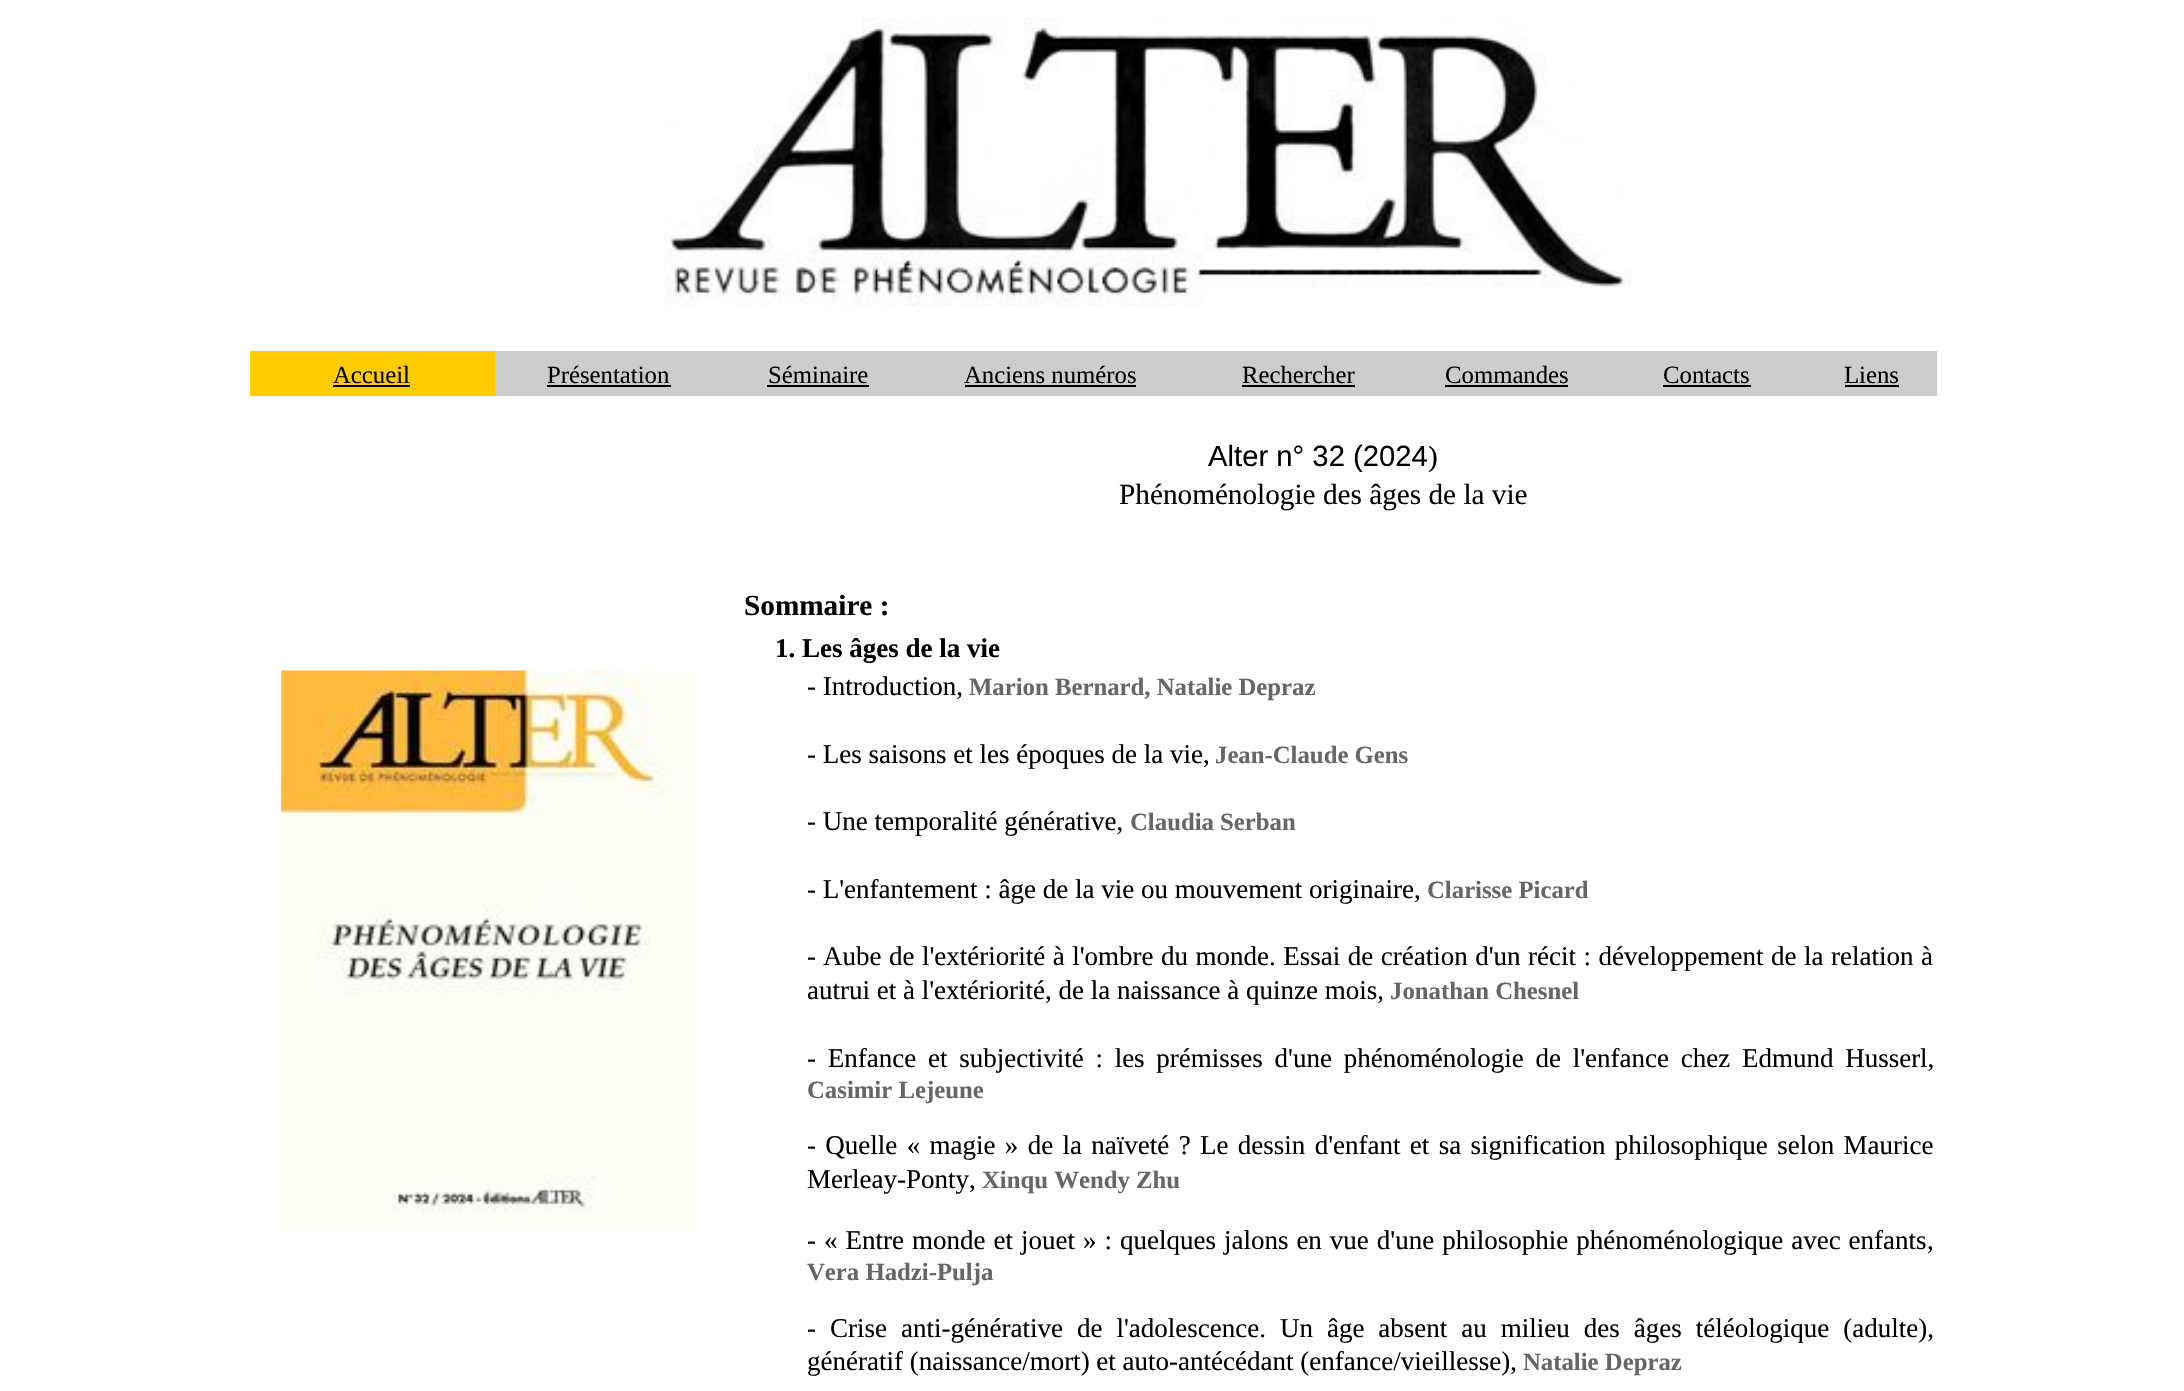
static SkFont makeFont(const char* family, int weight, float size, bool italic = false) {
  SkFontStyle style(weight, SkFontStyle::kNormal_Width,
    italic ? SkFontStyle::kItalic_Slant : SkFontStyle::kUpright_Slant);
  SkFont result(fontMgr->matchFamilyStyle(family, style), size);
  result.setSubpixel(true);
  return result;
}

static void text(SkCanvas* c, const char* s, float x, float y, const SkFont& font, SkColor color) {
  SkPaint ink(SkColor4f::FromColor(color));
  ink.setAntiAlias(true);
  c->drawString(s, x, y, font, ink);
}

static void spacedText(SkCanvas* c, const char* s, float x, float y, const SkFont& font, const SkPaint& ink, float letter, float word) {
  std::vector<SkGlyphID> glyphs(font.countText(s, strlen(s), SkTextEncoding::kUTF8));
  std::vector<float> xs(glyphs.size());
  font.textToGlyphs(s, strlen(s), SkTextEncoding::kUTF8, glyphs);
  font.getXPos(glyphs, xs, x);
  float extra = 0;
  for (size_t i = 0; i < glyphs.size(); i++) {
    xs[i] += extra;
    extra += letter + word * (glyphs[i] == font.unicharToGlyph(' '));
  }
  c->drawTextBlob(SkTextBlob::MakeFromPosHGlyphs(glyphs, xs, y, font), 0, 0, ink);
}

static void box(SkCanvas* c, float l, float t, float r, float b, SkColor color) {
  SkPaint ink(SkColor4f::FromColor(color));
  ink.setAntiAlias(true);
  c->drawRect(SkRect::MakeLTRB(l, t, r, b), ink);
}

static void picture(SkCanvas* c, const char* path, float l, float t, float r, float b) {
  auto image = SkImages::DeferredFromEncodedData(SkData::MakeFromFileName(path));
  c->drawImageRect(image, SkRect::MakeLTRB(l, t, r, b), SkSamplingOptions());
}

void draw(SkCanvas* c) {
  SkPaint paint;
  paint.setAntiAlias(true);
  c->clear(0xffffffff);
  picture(c, "img_01.png", 664, 18, 1631, 306);
  box(c, 250, 351, 495, 396, 0xffffcc00);
  SkFont face1 = makeFont("Liberation Serif", 400, 24.75f);
  text(c, "Accueil", 333, 383, face1, 0xff000000);
  box(c, 333, 385, 410, 387, 0xff000000);
  box(c, 495, 351, 1937, 396, 0xffcccccc);
  text(c, "Présentation", 547, 383, face1, 0xff000000);
  box(c, 547, 385, 671, 387, 0xff000000);
  text(c, "Séminaire", 768, 383, face1, 0xff000000);
  box(c, 767, 385, 869, 387, 0xff000000);
  text(c, "Anciens numéros", 964, 383, face1, 0xff000000);
  box(c, 965, 385, 1136, 387, 0xff000000);
  text(c, "Rechercher", 1242, 383, face1, 0xff000000);
  box(c, 1242, 385, 1355, 387, 0xff000000);
  text(c, "Commandes", 1445, 383, face1, 0xff000000);
  box(c, 1445, 385, 1568, 387, 0xff000000);
  text(c, "Contacts", 1663, 383, face1, 0xff000000);
  box(c, 1663, 385, 1751, 387, 0xff000000);
  text(c, "Liens", 1844, 383, face1, 0xff000000);
  box(c, 1845, 385, 1899, 387, 0xff000000);
  SkFont face2 = makeFont("Liberation Sans", 400, 29.25f);
  text(c, "Alter n° 32 (2024", 1208, 466, face2, 0xff000000);
  SkFont face3 = makeFont("Liberation Serif", 400, 29.25f);
  text(c, ")", 1428, 466, face3, 0xff000000);
  text(c, "Phénoménologie des âges de la vie", 1119, 504, face3, 0xff000000);
  SkFont face4 = makeFont("Liberation Serif", 700, 29.25f);
  text(c, "Sommaire :", 744, 615, face4, 0xff000000);
  SkFont face5 = makeFont("Liberation Serif", 700, 27);
  text(c, "1. Les âges de la vie", 775, 657, face5, 0xff000000);
  picture(c, "img_02.png", 281, 670, 695, 1233);
  SkFont face6 = makeFont("Liberation Serif", 400, 27);
  text(c, "- Introduction,", 807, 695, face6, 0xff000000);
  SkFont face7 = makeFont("Liberation Serif", 700, 24.75f);
  text(c, "Marion Bernard, Natalie Depraz", 969, 695, face7, 0xff666666);
  text(c, "- Les saisons et les époques de la vie,", 807, 763, face6, 0xff000000);
  text(c, "Jean-Claude Gens", 1215, 763, face7, 0xff666666);
  text(c, "- Une temporalité générative,", 807, 830, face6, 0xff000000);
  text(c, "Claudia Serban", 1130, 830, face7, 0xff666666);
  text(c, "- L'enfantement : âge de la vie ou mouvement originaire,", 807, 898, face6, 0xff000000);
  text(c, "Clarisse Picard", 1427, 898, face7, 0xff666666);
  text(c, "-", 807, 965, face6, 0xff000000);
  paint.setColor(0xff000000);
  spacedText(c, "Aube de l'extériorité à l'ombre du monde. Essai de création d'un récit : développement de la relation à", 823, 965, face6, paint, 0, 0.75f);
  text(c, "autrui et à l'extériorité, de la naissance à quinze mois,", 807, 999, face6, 0xff000000);
  text(c, "Jonathan Chesnel", 1390, 999, face7, 0xff666666);
  spacedText(c, "- Enfance et subjectivité : les prémisses d'une phénoménologie de l'enfance chez Edmund Husserl,", 807, 1067, face6, paint, 0, 5);
  text(c, "Casimir Lejeune", 807, 1098, face7, 0xff666666);
  spacedText(c, "- Quelle « magie » de la naïveté ? Le dessin d'enfant et sa signification philosophique selon Maurice", 807, 1154, face6, paint, 0, 2.6f);
  text(c, "Merleay-Ponty,", 807, 1188, face6, 0xff000000);
  text(c, "Xinqu Wendy Zhu", 982, 1188, face7, 0xff666666);
  spacedText(c, "- « Entre monde et jouet » : quelques jalons en vue d'une philosophie phénoménologique avec enfants", 807, 1249, face6, paint, 0, 1.25f);
  text(c, ",", 1927, 1249, face6, 0xff000000);
  text(c, "Vera Hadzi-Pulja", 807, 1280, face7, 0xff666666);
  spacedText(c, "- Crise anti-générative de l'adolescence. Un âge absent au milieu des âges téléologique (adulte),", 807, 1337, face6, paint, 0, 7.25f);
  text(c, "génératif (naissance/mort) et auto-antécédant (enfance/vieillesse),", 807, 1370, face6, 0xff000000);
  text(c, "Natalie Depraz", 1523, 1370, face7, 0xff666666);
}
